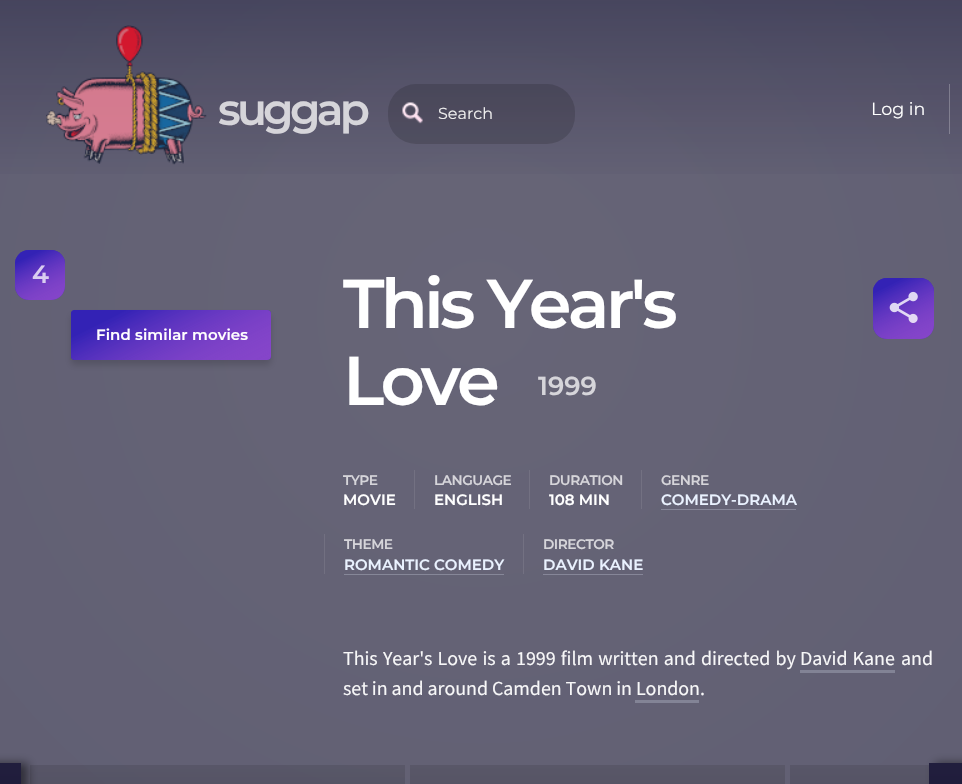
static SkFont makeFont(const char* family, int weight, float size, bool italic = false) {
  SkFontStyle style(weight, SkFontStyle::kNormal_Width,
    italic ? SkFontStyle::kItalic_Slant : SkFontStyle::kUpright_Slant);
  SkFont result(fontMgr->matchFamilyStyle(family, style), size);
  result.setSubpixel(true);
  return result;
}

static void text(SkCanvas* c, const char* s, float x, float y, const SkFont& font, SkColor color) {
  SkPaint ink(SkColor4f::FromColor(color));
  ink.setAntiAlias(true);
  c->drawString(s, x, y, font, ink);
}

static void spacedText(SkCanvas* c, const char* s, float x, float y, const SkFont& font, const SkPaint& ink, float letter, float word) {
  std::vector<SkGlyphID> glyphs(font.countText(s, strlen(s), SkTextEncoding::kUTF8));
  std::vector<float> xs(glyphs.size());
  font.textToGlyphs(s, strlen(s), SkTextEncoding::kUTF8, glyphs);
  font.getXPos(glyphs, xs, x);
  float extra = 0;
  for (size_t i = 0; i < glyphs.size(); i++) {
    xs[i] += extra;
    extra += letter + word * (glyphs[i] == font.unicharToGlyph(' '));
  }
  c->drawTextBlob(SkTextBlob::MakeFromPosHGlyphs(glyphs, xs, y, font), 0, 0, ink);
}

static void box(SkCanvas* c, float l, float t, float r, float b, SkColor color) {
  SkPaint ink(SkColor4f::FromColor(color));
  ink.setAntiAlias(true);
  c->drawRect(SkRect::MakeLTRB(l, t, r, b), ink);
}

static void roundBox(SkCanvas* c, float l, float t, float r, float b, float radius, SkColor color) {
  SkPaint ink(SkColor4f::FromColor(color));
  ink.setAntiAlias(true);
  c->drawRoundRect(SkRect::MakeLTRB(l, t, r, b), radius, radius, ink);
}

static void picture(SkCanvas* c, const char* path, float l, float t, float r, float b) {
  auto image = SkImages::DeferredFromEncodedData(SkData::MakeFromFileName(path));
  c->drawImageRect(image, SkRect::MakeLTRB(l, t, r, b), SkSamplingOptions());
}

void draw(SkCanvas* c) {
  SkPaint paint;
  paint.setAntiAlias(true);
  c->clear(0xffffffff);
  {
    const SkColor colors[] = {0xff676577, 0xff504f69};
    const float stops[] = {0, 0.75f};
    paint.setShader(SkGradientShader::MakeRadial({481, 314}, 3207, colors, stops, 2, SkTileMode::kClamp));
    paint.setAlpha(255);
  }
  c->drawRect(SkRect::MakeLTRB(0, 0, 962, 784), paint);
  {
    const SkColor colors[] = {0x4d050328, 0x00050328};
    const float stops[] = {0, 1};
    const SkPoint ends[] = {{481, 0}, {481, 190}};
    paint.setShader(SkGradientShader::MakeLinear(ends, colors, stops, 2, SkTileMode::kClamp));
    paint.setAlpha(255);
  }
  c->drawRect(SkRect::MakeLTRB(0, 0, 962, 174), paint);
  picture(c, "img_01.png", 46, 25, 207, 165);
  SkFont face1 = makeFont("Montserrat", 600, 44);
  paint.setShader(nullptr);
  paint.setColor(0xffd6d5da);
  spacedText(c, "suggap", 218, 125, face1, paint, -3.75f, 0);
  roundBox(c, 388, 84, 575, 144, 28, 0x26000000);
  picture(c, "img_02.png", 402, 102, 423, 124);
  SkFont face2 = makeFont("Montserrat", 400, 16);
  text(c, "Search", 438, 119, face2, 0xffeeeeee);
  SkFont face3 = makeFont("Montserrat", 400, 17.5f);
  text(c, "Log in", 871, 115, face3, 0xffffffff);
  box(c, 949, 84, 950, 134, 0x40ffffff);
  roundBox(c, 15, 250, 65, 300, 14, 0xff3322b5);
  {
    const SkColor colors[] = {0xff3322b5, 0x80d667dd};
    const float stops[] = {0.18f, 1};
    const SkPoint ends[] = {{25, 245}, {55, 305}};
    paint.setShader(SkGradientShader::MakeLinear(ends, colors, stops, 2, SkTileMode::kClamp));
    paint.setAlpha(255);
  }
  c->drawRoundRect(SkRect::MakeLTRB(15, 250, 65, 300), 14, 14, paint);
  SkFont face4 = makeFont("Montserrat", 600, 25);
  text(c, "4", 32, 283, face4, 0xffd9cdf0);
  paint.setShader(nullptr);
  paint.setColor(0x26000000);
  paint.setMaskFilter(SkMaskFilter::MakeBlur(kNormal_SkBlurStyle, 3));
  c->drawRoundRect(SkRect::MakeLTRB(71, 315, 271, 365), 4, 4, paint);
  paint.setMaskFilter(nullptr);
  roundBox(c, 71, 310, 271, 360, 4, 0xff3322b5);
  {
    const SkColor colors[] = {0xff3322b5, 0x80d667dd};
    const float stops[] = {0.18f, 1};
    const SkPoint ends[] = {{141, 275}, {202, 395}};
    paint.setShader(SkGradientShader::MakeLinear(ends, colors, stops, 2, SkTileMode::kClamp));
    paint.setAlpha(255);
  }
  c->drawRoundRect(SkRect::MakeLTRB(71, 310, 271, 360), 4, 4, paint);
  SkFont face5 = makeFont("Montserrat", 600, 15);
  paint.setShader(nullptr);
  paint.setColor(0xffffffff);
  spacedText(c, "Find similar movies", 96, 340, face5, paint, 0.1f, 0);
  SkFont face6 = makeFont("Montserrat", 600, 68.75f);
  spacedText(c, "This Year's", 343, 328, face6, paint, -3.75f, 0);
  spacedText(c, "Love", 343, 405, face6, paint, -3.75f, 0);
  SkFont face7 = makeFont("Montserrat", 600, 26);
  text(c, "1999", 538, 395, face7, 0xffd6d5da);
  roundBox(c, 873, 278, 934, 339, 14, 0xff3322b5);
  {
    const SkColor colors[] = {0xff3322b5, 0x80d667dd};
    const float stops[] = {0.18f, 1};
    const SkPoint ends[] = {{884, 271}, {922, 345}};
    paint.setShader(SkGradientShader::MakeLinear(ends, colors, stops, 2, SkTileMode::kClamp));
    paint.setAlpha(255);
  }
  c->drawRoundRect(SkRect::MakeLTRB(873, 278, 934, 339), 14, 14, paint);
  picture(c, "img_03.png", 889, 291, 918, 323);
  SkFont face8 = makeFont("Montserrat", 600, 13.75f);
  paint.setShader(nullptr);
  paint.setColor(0xffd6d5da);
  spacedText(c, "TYPE", 343, 485, face8, paint, -0.5f, 0);
  text(c, "MOVIE", 343, 505, face5, 0xffffffff);
  box(c, 414, 470, 415, 509, 0xff737182);
  spacedText(c, "LANGUAGE", 434, 485, face8, paint, -0.5f, 0);
  text(c, "ENGLISH", 434, 505, face5, 0xffffffff);
  box(c, 529, 470, 530, 509, 0xff737182);
  spacedText(c, "DURATION", 549, 485, face8, paint, -0.5f, 0);
  text(c, "108 MIN", 549, 505, face5, 0xffffffff);
  box(c, 641, 470, 642, 509, 0xff737182);
  spacedText(c, "GENRE", 661, 485, face8, paint, -0.5f, 0);
  text(c, "COMEDY-DRAMA", 661, 505, face5, 0xffeaf2ff);
  box(c, 661, 509, 796, 510, 0xff868698);
  box(c, 324, 534, 325, 574, 0xff727081);
  spacedText(c, "THEME", 344, 549, face8, paint, -0.5f, 0);
  text(c, "ROMANTIC COMEDY", 344, 570, face5, 0xffeaf2ff);
  box(c, 344, 574, 504, 575, 0xff868798);
  box(c, 523, 534, 524, 574, 0xff737182);
  spacedText(c, "DIRECTOR", 543, 549, face8, paint, -0.5f, 0);
  text(c, "DAVID KANE", 543, 570, face5, 0xffeaf2ff);
  box(c, 543, 574, 643, 575, 0xff868698);
  SkFont face9 = makeFont("Source Sans Pro", 400, 20);
  paint.setColor(0xfff7f7f8);
  spacedText(c, "This Year's Love is a 1999 film written and directed by", 343, 665, face9, paint, -0.05f, 1.25f);
  spacedText(c, "David Kane", 800, 665, face9, paint, -0.05f, 1);
  box(c, 800, 670, 895, 673, 0xff828395);
  spacedText(c, "and", 901, 665, face9, paint, -0.05f, 0);
  spacedText(c, "set in and around Camden Town in London.", 343, 695, face9, paint, -0.05f, 0);
  box(c, 635, 700, 699, 703, 0xff838496);
  paint.setColor(0x80000000);
  paint.setMaskFilter(SkMaskFilter::MakeBlur(kNormal_SkBlurStyle, 4.5f));
  c->drawRect(SkRect::MakeLTRB(-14, 763, 28, 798), paint);
  paint.setMaskFilter(nullptr);
  {
    const SkColor colors[] = {0xff211e3d, 0xff1b1737};
    const float stops[] = {0.01f, 1};
    const SkPoint ends[] = {{-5.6f, 763}, {-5.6f, 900}};
    paint.setShader(SkGradientShader::MakeLinear(ends, colors, stops, 2, SkTileMode::kClamp));
    paint.setAlpha(255);
  }
  c->drawRect(SkRect::MakeLTRB(0, 763, 21, 784), paint);
  {
    const SkColor colors[] = {0x1a000000, 0x4d000000};
    const float stops[] = {0, 1};
    const SkPoint ends[] = {{218, 765}, {218, 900}};
    paint.setShader(SkGradientShader::MakeLinear(ends, colors, stops, 2, SkTileMode::kClamp));
    paint.setAlpha(255);
  }
  c->drawRect(SkRect::MakeLTRB(30, 765, 405, 784), paint);
  {
    const SkColor colors[] = {0xff595768, 0xff454451};
    const float stops[] = {0, 1};
    const SkPoint ends[] = {{598, 765}, {598, 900}};
    paint.setShader(SkGradientShader::MakeLinear(ends, colors, stops, 2, SkTileMode::kClamp));
    paint.setAlpha(255);
  }
  c->drawRect(SkRect::MakeLTRB(410, 765, 785, 784), paint);
  {
    const SkColor colors[] = {0xff585668, 0xff444351};
    const float stops[] = {0, 1};
    const SkPoint ends[] = {{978, 765}, {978, 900}};
    paint.setShader(SkGradientShader::MakeLinear(ends, colors, stops, 2, SkTileMode::kClamp));
    paint.setAlpha(255);
  }
  c->drawRect(SkRect::MakeLTRB(790, 765, 929, 784), paint);
  paint.setShader(nullptr);
  paint.setColor(0x80000000);
  paint.setMaskFilter(SkMaskFilter::MakeBlur(kNormal_SkBlurStyle, 4.5f));
  c->drawRect(SkRect::MakeLTRB(935, 763, 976, 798), paint);
  paint.setMaskFilter(nullptr);
  {
    const SkColor colors[] = {0xff211e3d, 0xff1b1737};
    const float stops[] = {0.01f, 1};
    const SkPoint ends[] = {{956, 763}, {956, 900}};
    paint.setShader(SkGradientShader::MakeLinear(ends, colors, stops, 2, SkTileMode::kClamp));
    paint.setAlpha(255);
  }
  c->drawRect(SkRect::MakeLTRB(929, 763, 962, 784), paint);
}
